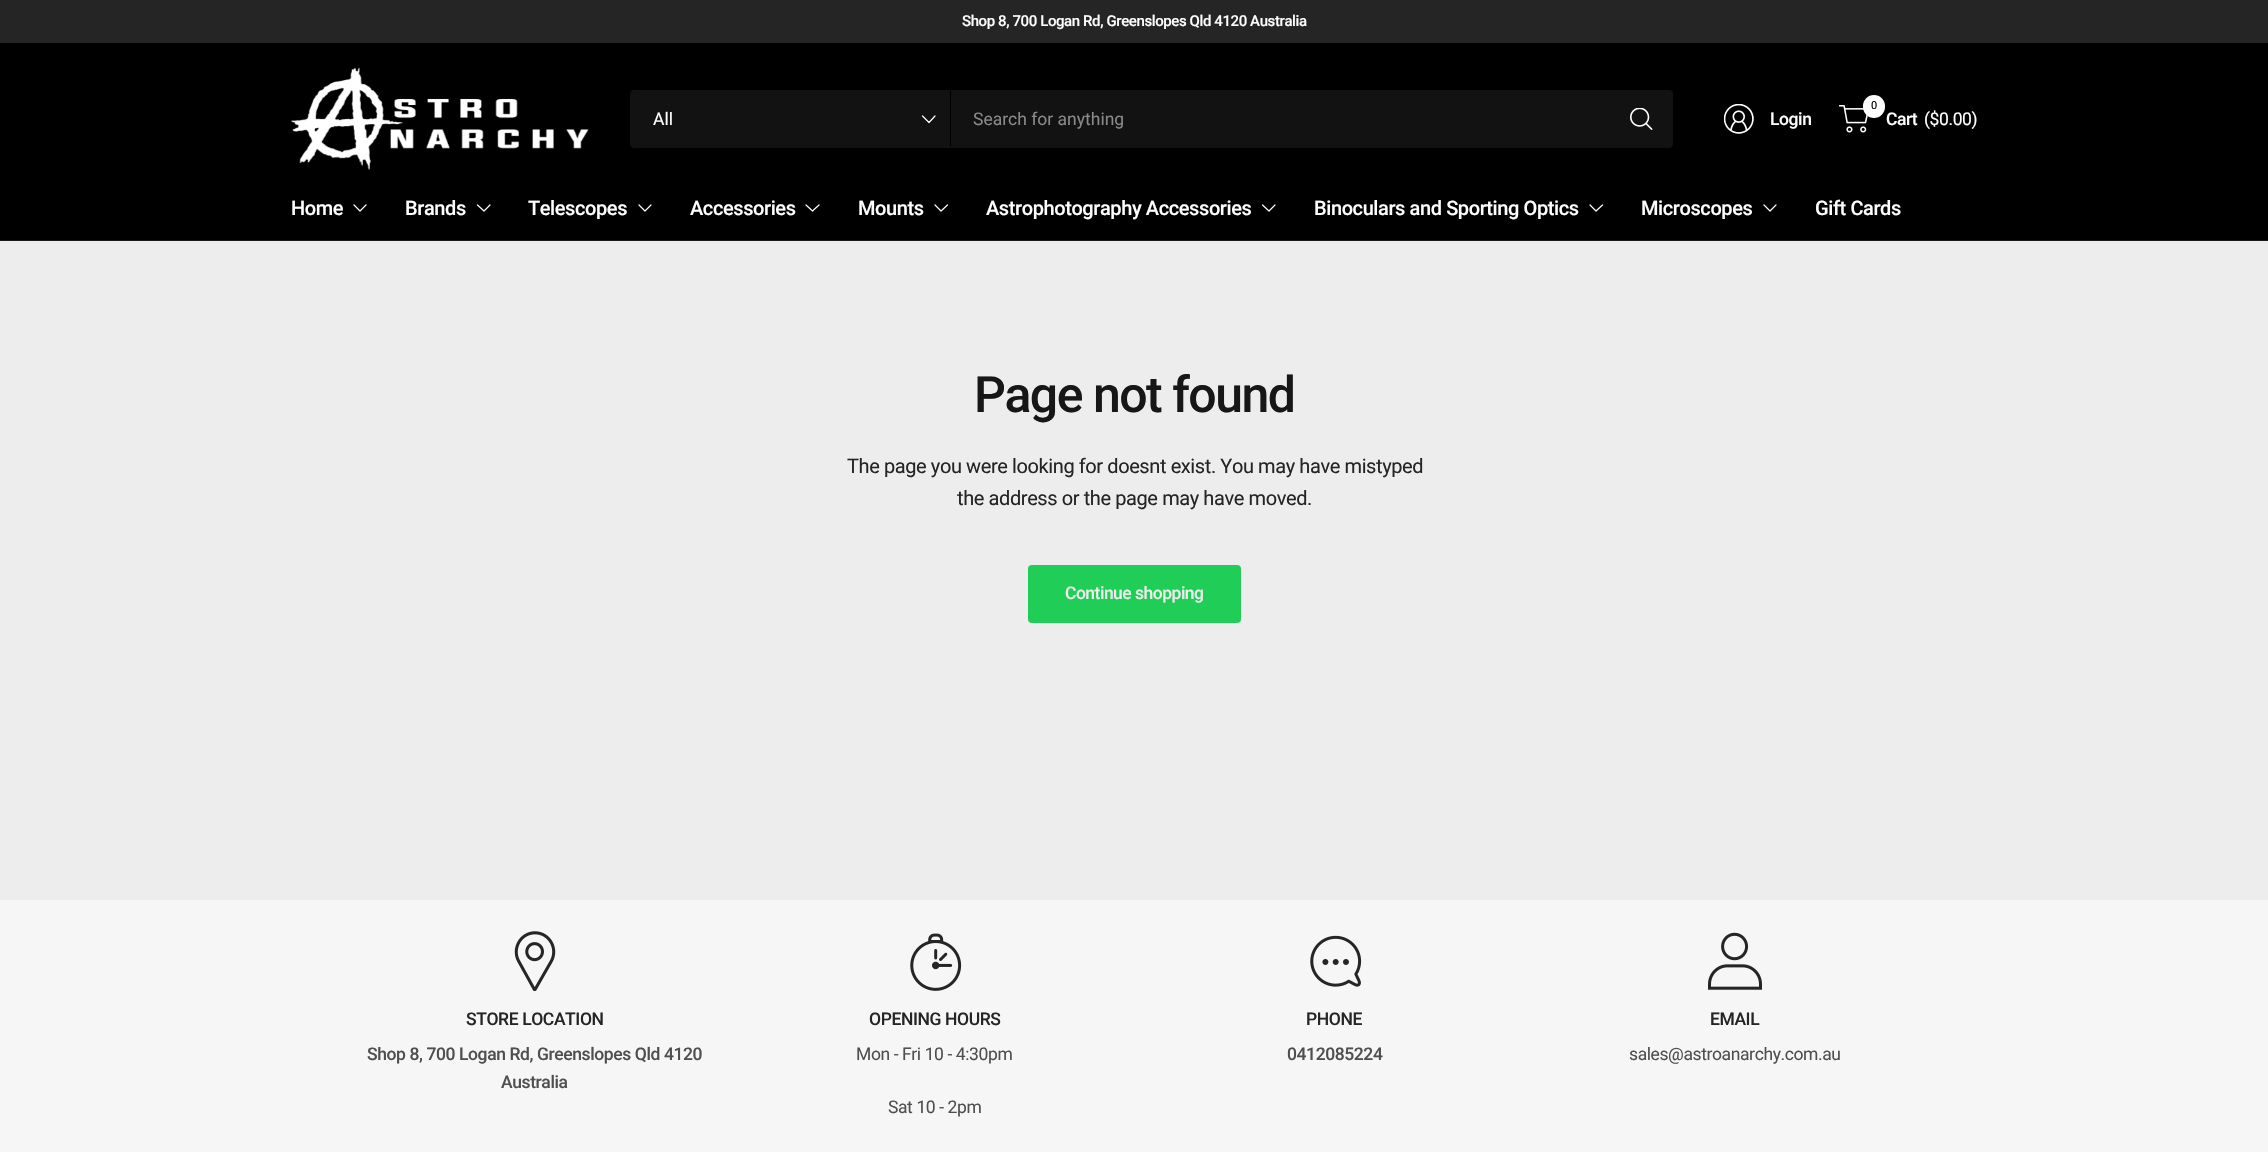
static SkFont makeFont(const char* family, int weight, float size, bool italic = false) {
  SkFontStyle style(weight, SkFontStyle::kNormal_Width,
    italic ? SkFontStyle::kItalic_Slant : SkFontStyle::kUpright_Slant);
  SkFont result(fontMgr->matchFamilyStyle(family, style), size);
  result.setSubpixel(true);
  return result;
}

static void text(SkCanvas* c, const char* s, float x, float y, const SkFont& font, SkColor color) {
  SkPaint ink(SkColor4f::FromColor(color));
  ink.setAntiAlias(true);
  c->drawString(s, x, y, font, ink);
}

static void spacedText(SkCanvas* c, const char* s, float x, float y, const SkFont& font, const SkPaint& ink, float letter, float word) {
  std::vector<SkGlyphID> glyphs(font.countText(s, strlen(s), SkTextEncoding::kUTF8));
  std::vector<float> xs(glyphs.size());
  font.textToGlyphs(s, strlen(s), SkTextEncoding::kUTF8, glyphs);
  font.getXPos(glyphs, xs, x);
  float extra = 0;
  for (size_t i = 0; i < glyphs.size(); i++) {
    xs[i] += extra;
    extra += letter + word * (glyphs[i] == font.unicharToGlyph(' '));
  }
  c->drawTextBlob(SkTextBlob::MakeFromPosHGlyphs(glyphs, xs, y, font), 0, 0, ink);
}

static void box(SkCanvas* c, float l, float t, float r, float b, SkColor color) {
  SkPaint ink(SkColor4f::FromColor(color));
  ink.setAntiAlias(true);
  c->drawRect(SkRect::MakeLTRB(l, t, r, b), ink);
}

static void roundBox(SkCanvas* c, float l, float t, float r, float b, float radius, SkColor color) {
  SkPaint ink(SkColor4f::FromColor(color));
  ink.setAntiAlias(true);
  c->drawRoundRect(SkRect::MakeLTRB(l, t, r, b), radius, radius, ink);
}

static void picture(SkCanvas* c, const char* path, float l, float t, float r, float b) {
  auto image = SkImages::DeferredFromEncodedData(SkData::MakeFromFileName(path));
  c->drawImageRect(image, SkRect::MakeLTRB(l, t, r, b), SkSamplingOptions());
}

void draw(SkCanvas* c) {
  SkPaint paint;
  paint.setAntiAlias(true);
  c->clear(0xffededed);
  box(c, 0, 0, 2268, 43, 0xff252525);
  SkFont face1 = makeFont("Roboto", 500, 15);
  paint.setColor(0xffffffff);
  spacedText(c, "Shop 8, 700 Logan Rd, Greenslopes Qld 4120 Australia", 962, 26, face1, paint, -0.4f, 0);
  box(c, 0, 43, 2268, 240, 0xff000000);
  picture(c, "img_01.png", 291, 67, 589, 170);
  paint.setColor(0xff121212);
  c->drawPath(SkPathBuilder().moveTo(634, 90).lineTo(951, 90).lineTo(951, 148).lineTo(634, 148).cubicTo(632, 148, 630, 146, 630, 144).lineTo(630, 94).cubicTo(630, 92, 632, 90, 634, 90).close().detach(), paint);
  paint.setColor(0xff000000);
  c->drawPath(SkPathBuilder().moveTo(951, 90).lineTo(951, 147).lineTo(950, 146).lineTo(950, 91).close().detach(), paint);
  SkFont face2 = makeFont("Roboto", 400, 17.5f);
  text(c, "All", 653, 125, face2, 0xffffffff);
  paint.setStyle(SkPaint::kStroke_Style);
  paint.setStrokeWidth(1.2f);
  paint.setStrokeCap(SkPaint::kRound_Cap);
  paint.setStrokeJoin(SkPaint::kRound_Join);
  paint.setColor(0xffffffff);
  c->drawPath(SkPathBuilder().moveTo(935, 116).lineTo(929, 122.5f).lineTo(922.5f, 116).detach(), paint);
  paint.setStyle(SkPaint::kFill_Style);
  paint.setColor(0xff121212);
  c->drawPath(SkPathBuilder().moveTo(951, 90).lineTo(1669, 90).cubicTo(1671, 90, 1673, 92, 1673, 94).lineTo(1673, 144).cubicTo(1673, 146, 1671, 148, 1669, 148).lineTo(951, 148).close().detach(), paint);
  text(c, "Search for anything", 973, 125, face2, 0xff898989);
  picture(c, "img_02.png", 1630, 108, 1653, 130);
  picture(c, "img_03.png", 1724, 104, 1754, 134);
  SkFont face3 = makeFont("Roboto", 500, 17.5f);
  paint.setColor(0xffffffff);
  spacedText(c, "Login", 1770, 125, face3, paint, -0.4f, 0);
  picture(c, "img_04.png", 1839, 105, 1868, 133);
  roundBox(c, 1863, 95, 1885, 118, 11, 0xffffffff);
  SkFont face4 = makeFont("Roboto", 400, 11);
  paint.setColor(0xff000000);
  spacedText(c, "0", 1871, 109, face4, paint, -0.4f, 0);
  paint.setColor(0xffffffff);
  spacedText(c, "Cart", 1886, 125, face3, paint, -0.4f, 0);
  spacedText(c, "($0.00)", 1924, 125, face2, paint, -0.4f, 0);
  SkFont face5 = makeFont("Roboto", 500, 20);
  spacedText(c, "Home", 291, 215, face5, paint, -0.4f, 0);
  paint.setStyle(SkPaint::kStroke_Style);
  c->drawPath(SkPathBuilder().moveTo(366, 205).lineTo(360, 211).lineTo(354, 205).detach(), paint);
  paint.setStyle(SkPaint::kFill_Style);
  spacedText(c, "Brands", 405, 215, face5, paint, -0.4f, 0);
  paint.setStyle(SkPaint::kStroke_Style);
  c->drawPath(SkPathBuilder().moveTo(490, 205).lineTo(484, 211).lineTo(477.5f, 205).detach(), paint);
  paint.setStyle(SkPaint::kFill_Style);
  spacedText(c, "Telescopes", 528, 215, face5, paint, -0.4f, 0);
  paint.setStyle(SkPaint::kStroke_Style);
  c->drawPath(SkPathBuilder().moveTo(651, 205).lineTo(645, 211).lineTo(639, 205).detach(), paint);
  paint.setStyle(SkPaint::kFill_Style);
  spacedText(c, "Accessories", 690, 215, face5, paint, -0.4f, 0);
  paint.setStyle(SkPaint::kStroke_Style);
  c->drawPath(SkPathBuilder().moveTo(819, 205).lineTo(812.5f, 211).lineTo(806, 205).detach(), paint);
  paint.setStyle(SkPaint::kFill_Style);
  spacedText(c, "Mounts", 858, 215, face5, paint, -0.4f, 0);
  paint.setStyle(SkPaint::kStroke_Style);
  c->drawPath(SkPathBuilder().moveTo(947.5f, 205).lineTo(941, 211).lineTo(935, 205).detach(), paint);
  paint.setStyle(SkPaint::kFill_Style);
  spacedText(c, "Astrophotography Accessories", 986, 215, face5, paint, -0.4f, 0);
  paint.setStyle(SkPaint::kStroke_Style);
  c->drawPath(SkPathBuilder().moveTo(1275, 205).lineTo(1269, 211).lineTo(1262.5f, 205).detach(), paint);
  paint.setStyle(SkPaint::kFill_Style);
  spacedText(c, "Binoculars and Sporting Optics", 1314, 215, face5, paint, -0.4f, 0);
  paint.setStyle(SkPaint::kStroke_Style);
  c->drawPath(SkPathBuilder().moveTo(1602.5f, 205).lineTo(1596, 211).lineTo(1590, 205).detach(), paint);
  paint.setStyle(SkPaint::kFill_Style);
  spacedText(c, "Microscopes", 1641, 215, face5, paint, -0.4f, 0);
  paint.setStyle(SkPaint::kStroke_Style);
  c->drawPath(SkPathBuilder().moveTo(1776, 205).lineTo(1770, 211).lineTo(1764, 205).detach(), paint);
  paint.setStyle(SkPaint::kFill_Style);
  spacedText(c, "Gift Cards", 1815, 215, face5, paint, -0.4f, 0);
  box(c, 0, 240, 2268, 241, 0xff1a1a1a);
  SkFont face6 = makeFont("Roboto", 500, 50);
  paint.setColor(0xff171717);
  spacedText(c, "Page not found", 974, 412, face6, paint, -1.5f, 0);
  SkFont face7 = makeFont("Roboto", 400, 20);
  paint.setColor(0xff252525);
  spacedText(c, "The page you were looking for doesnt exist. You may have mistyped", 847, 473, face7, paint, -0.4f, 0);
  spacedText(c, "the address or the page may have moved.", 957, 505, face7, paint, -0.4f, 0);
  roundBox(c, 1028, 565, 1241, 623, 4, 0xff20cd56);
  paint.setColor(0xffededed);
  spacedText(c, "Continue shopping", 1065, 599, face3, paint, -0.5f, 0);
  box(c, 0, 900, 2268, 1152, 0xfff6f6f6);
  picture(c, "img_05.png", 514, 931, 556, 991);
  paint.setColor(0xff252525);
  spacedText(c, "STORE LOCATION", 466, 1025, face3, paint, -0.4f, 0);
  paint.setColor(0xff4f4f4f);
  spacedText(c, "Shop 8, 700 Logan Rd, Greenslopes Qld 4120", 367, 1060, face3, paint, -0.4f, 0);
  spacedText(c, "Australia", 501, 1088, face3, paint, -0.4f, 0);
  picture(c, "img_06.png", 910, 933, 962, 991);
  paint.setColor(0xff252525);
  spacedText(c, "OPENING HOURS", 869, 1025, face3, paint, -0.4f, 0);
  paint.setColor(0xff4f4f4f);
  spacedText(c, "Mon - Fri 10 - 4:30pm", 856, 1060, face2, paint, -0.4f, 0);
  spacedText(c, "Sat 10 - 2pm", 888, 1113, face2, paint, -0.4f, 0);
  picture(c, "img_07.png", 1310, 935, 1362, 987);
  paint.setColor(0xff252525);
  spacedText(c, "PHONE", 1306, 1025, face3, paint, -0.4f, 0);
  paint.setColor(0xff4f4f4f);
  spacedText(c, "0412085224", 1287, 1060, face3, paint, -0.4f, 0);
  picture(c, "img_08.png", 1708, 932, 1762, 990);
  paint.setColor(0xff252525);
  spacedText(c, "EMAIL", 1710, 1025, face3, paint, -0.4f, 0);
  paint.setColor(0xff4f4f4f);
  spacedText(c, "sales@astroanarchy.com.au", 1629, 1060, face2, paint, -0.4f, 0);
}
